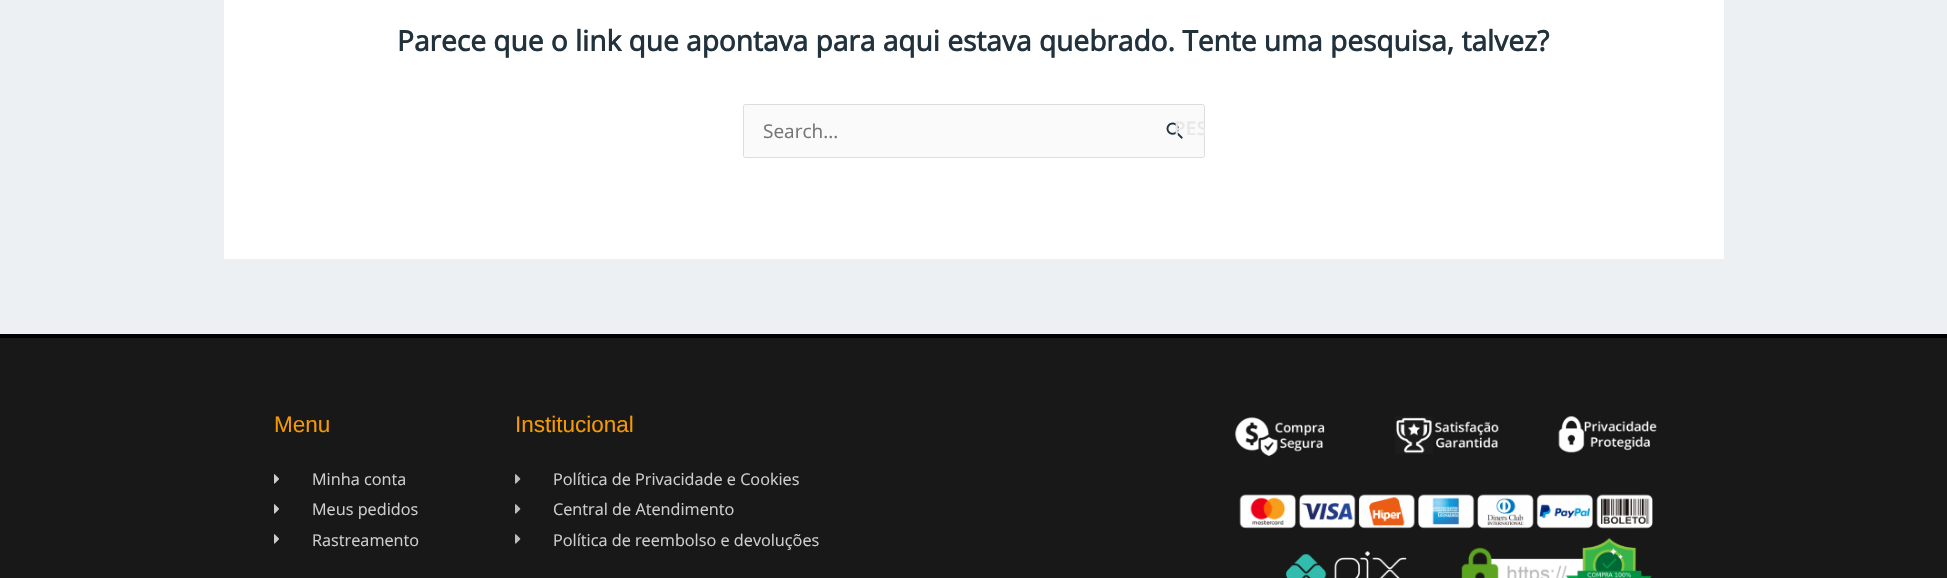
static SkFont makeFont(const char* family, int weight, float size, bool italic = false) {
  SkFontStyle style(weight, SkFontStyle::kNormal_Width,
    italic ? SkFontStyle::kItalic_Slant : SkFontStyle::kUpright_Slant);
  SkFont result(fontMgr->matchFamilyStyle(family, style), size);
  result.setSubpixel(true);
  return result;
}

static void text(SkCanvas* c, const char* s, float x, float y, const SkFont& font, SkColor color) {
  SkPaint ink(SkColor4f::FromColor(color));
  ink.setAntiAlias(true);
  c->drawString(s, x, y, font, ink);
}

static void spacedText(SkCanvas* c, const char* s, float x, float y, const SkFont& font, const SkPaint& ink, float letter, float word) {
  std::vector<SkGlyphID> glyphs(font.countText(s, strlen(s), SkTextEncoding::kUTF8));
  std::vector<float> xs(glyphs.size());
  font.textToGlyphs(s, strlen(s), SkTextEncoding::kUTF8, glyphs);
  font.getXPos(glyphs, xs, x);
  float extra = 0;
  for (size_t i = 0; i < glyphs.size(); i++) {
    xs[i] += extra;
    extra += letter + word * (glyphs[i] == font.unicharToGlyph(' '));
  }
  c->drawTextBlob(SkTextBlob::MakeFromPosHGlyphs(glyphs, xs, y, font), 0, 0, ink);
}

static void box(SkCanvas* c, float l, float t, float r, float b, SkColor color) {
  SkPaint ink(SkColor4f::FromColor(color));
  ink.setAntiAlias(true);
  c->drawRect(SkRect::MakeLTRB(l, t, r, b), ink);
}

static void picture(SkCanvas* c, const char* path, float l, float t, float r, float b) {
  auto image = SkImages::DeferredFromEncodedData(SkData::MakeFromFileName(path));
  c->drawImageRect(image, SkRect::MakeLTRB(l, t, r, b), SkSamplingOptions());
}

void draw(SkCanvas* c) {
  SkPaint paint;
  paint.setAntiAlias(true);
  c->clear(0xffecf0f2);
  box(c, 224, 0, 1724, 259, 0xffffffff);
  SkFont face1 = makeFont("Open Sans", 700, 28.1f);
  text(c, "Parece que o link que apontava para aqui estava quebrado. Tente uma pesquisa, talvez?", 397, 51, face1, 0xff22323d);
  paint.setColor(0xfffafafa);
  c->drawRoundRect(SkRect::MakeLTRB(743.5f, 104.5f, 1204.5f, 157.5f), 2, 2, paint);
  paint.setStyle(SkPaint::kStroke_Style);
  paint.setStrokeWidth(1);
  paint.setColor(0xffdddddd);
  c->drawRoundRect(SkRect::MakeLTRB(743.5f, 104.5f, 1204.5f, 157.5f), 2, 2, paint);
  SkFont face2 = makeFont("Open Sans", 400, 19);
  text(c, "Search...", 763, 138, face2, 0xff757575);
  picture(c, "img_01.png", 1166, 122, 1183, 139);
  c->save();
  c->clipPath(SkPathBuilder().moveTo(1151.5f, 104).lineTo(1202.5f, 104).cubicTo(1204, 104, 1205, 105, 1205, 106.5f).lineTo(1205, 151.5f).cubicTo(1205, 153, 1204, 154, 1202.5f, 154).lineTo(1151.5f, 154).cubicTo(1150, 154, 1149, 153, 1149, 151.5f).lineTo(1149, 106.5f).cubicTo(1149, 105, 1150, 104, 1151.5f, 104).close().detach(), true);
  SkFont face3 = makeFont("Open Sans", 700, 18);
  paint.setStyle(SkPaint::kFill_Style);
  paint.setColor(0xffe7e8e9);
  spacedText(c, "PES", 1174, 135, face3, paint, 1, 0);
  c->restore();
  box(c, 0, 338, 1947, 578, 0xff181818);
  box(c, 0, 334, 1947, 338, 0xff000000);
  SkFont face4 = makeFont("Liberation Sans", 400, 22.5f);
  text(c, "Menu", 274, 432, face4, 0xfff49901);
  picture(c, "img_02.png", 274, 474, 279, 484);
  SkFont face5 = makeFont("Open Sans", 400, 16.25f);
  text(c, "Minha conta", 312, 485, face5, 0xffcecece);
  picture(c, "img_02.png", 274, 504, 279, 514);
  text(c, "Meus pedidos", 312, 515, face5, 0xffcecece);
  picture(c, "img_02.png", 274, 534, 279, 544);
  text(c, "Rastreamento", 312, 546, face5, 0xffcecece);
  text(c, "Institucional", 515, 432, face4, 0xfff49901);
  picture(c, "img_03.png", 515, 474, 521, 484);
  text(c, "Política de Privacidade e Cookies", 553, 485, face5, 0xffcecece);
  picture(c, "img_03.png", 515, 504, 521, 514);
  text(c, "Central de Atendimento", 553, 515, face5, 0xffcecece);
  picture(c, "img_03.png", 515, 534, 521, 544);
  text(c, "Política de reembolso e devoluções", 553, 546, face5, 0xffcecece);
  picture(c, "img_04.png", 1235, 416, 1657, 457);
  picture(c, "img_05.png", 1239, 494, 1653, 578);
}
